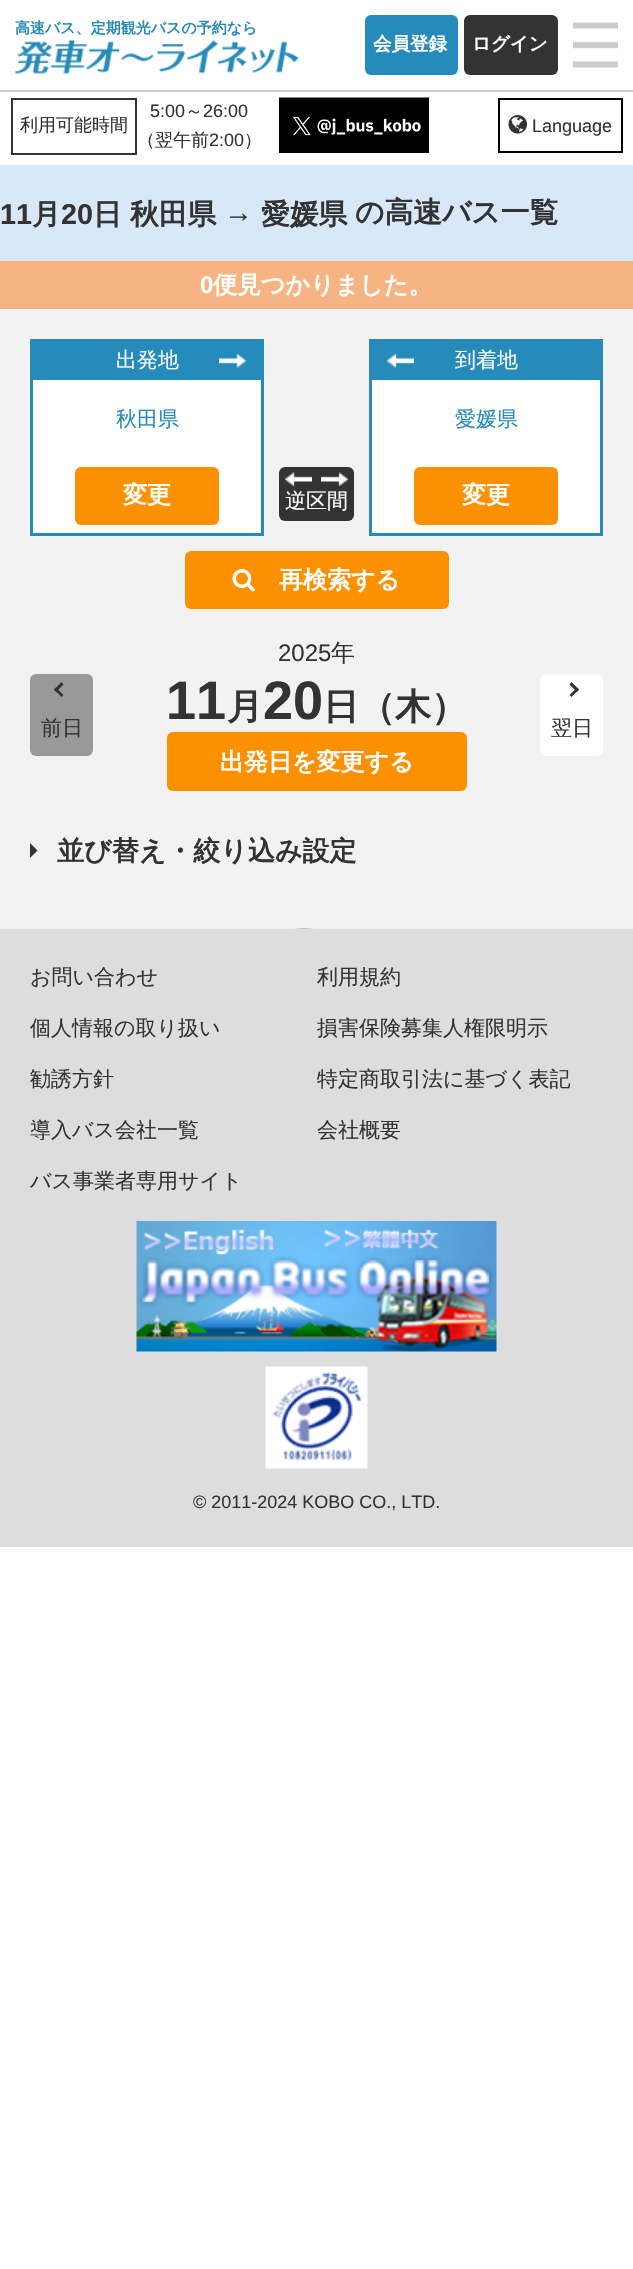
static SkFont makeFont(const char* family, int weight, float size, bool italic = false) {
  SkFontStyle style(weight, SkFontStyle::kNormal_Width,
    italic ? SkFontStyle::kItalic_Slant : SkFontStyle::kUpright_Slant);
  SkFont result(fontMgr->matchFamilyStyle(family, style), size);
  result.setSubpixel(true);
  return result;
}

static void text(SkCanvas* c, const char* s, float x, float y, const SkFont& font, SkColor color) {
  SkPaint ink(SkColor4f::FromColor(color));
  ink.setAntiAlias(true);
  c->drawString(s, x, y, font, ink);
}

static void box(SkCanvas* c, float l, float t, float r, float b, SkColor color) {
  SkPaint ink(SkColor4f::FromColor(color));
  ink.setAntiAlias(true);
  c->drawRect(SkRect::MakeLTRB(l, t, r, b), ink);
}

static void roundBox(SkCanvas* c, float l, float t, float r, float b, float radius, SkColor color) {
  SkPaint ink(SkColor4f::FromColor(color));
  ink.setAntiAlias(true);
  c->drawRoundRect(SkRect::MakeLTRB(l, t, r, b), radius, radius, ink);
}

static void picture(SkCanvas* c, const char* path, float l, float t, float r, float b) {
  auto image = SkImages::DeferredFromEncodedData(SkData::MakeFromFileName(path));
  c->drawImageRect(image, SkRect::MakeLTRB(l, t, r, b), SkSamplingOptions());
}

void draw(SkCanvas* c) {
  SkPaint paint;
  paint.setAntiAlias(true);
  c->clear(0xffffffff);
  box(c, 0, 90, 633, 92, 0xffcccccc);
  SkFont face1 = makeFont("WenQuanYi Zen Hei", 700, 15);
  text(c, "高速バス、定期観光バスの予約なら", 15, 33, face1, 0xff268bb9);
  picture(c, "img_01.png", 15, 40, 299, 74);
  roundBox(c, 365, 15, 458, 75, 6, 0xff268bba);
  SkFont face2 = makeFont("WenQuanYi Zen Hei", 700, 18.5f);
  text(c, "会員登録", 373, 50, face2, 0xffffffff);
  roundBox(c, 464, 15, 558, 75, 6, 0xff333333);
  text(c, "ログイン", 472, 50, face2, 0xffffffff);
  picture(c, "img_02.png", 573, 22, 618, 68);
  paint.setStyle(SkPaint::kStroke_Style);
  paint.setStrokeWidth(2);
  paint.setColor(0xff333333);
  c->drawRect(SkRect::MakeLTRB(12, 99, 136, 154), paint);
  SkFont face3 = makeFont("WenQuanYi Zen Hei", 500, 18);
  text(c, "利用可能時間", 20, 131, face3, 0xff333333);
  SkFont face4 = makeFont("Liberation Sans", 400, 18);
  text(c, "5:00", 150, 117, face4, 0xff333333);
  text(c, "～", 185, 117, face3, 0xff333333);
  text(c, "26:00", 203, 117, face4, 0xff333333);
  text(c, "（翌午前", 137, 146, face3, 0xff333333);
  text(c, "2:00", 209, 146, face4, 0xff333333);
  text(c, "）", 244, 146, face3, 0xff333333);
  picture(c, "img_03.png", 279, 97, 429, 153);
  paint.setColor(0xff000000);
  c->drawRect(SkRect::MakeLTRB(499, 99, 622, 152), paint);
  picture(c, "img_04.png", 508, 115, 527, 134);
  text(c, "Language", 532, 132, face4, 0xff333333);
  box(c, 0, 165, 633, 261, 0xffd9e8f8);
  SkFont face5 = makeFont("Liberation Sans", 700, 28.75f);
  text(c, "11", 0, 224, face5, 0xff333333);
  SkFont face6 = makeFont("WenQuanYi Zen Hei", 700, 28.75f);
  text(c, "月", 32, 224, face6, 0xff333333);
  text(c, "20", 61, 224, face5, 0xff333333);
  text(c, "日", 93, 224, face6, 0xff333333);
  text(c, "秋田県", 130, 224, face6, 0xff333333);
  text(c, "→", 224, 222, face5, 0xff333333);
  text(c, "愛媛県", 261, 224, face6, 0xff333333);
  text(c, "の高速バス一覧", 355, 222, face6, 0xff333333);
  box(c, 0, 261, 633, 309, 0xfff6b484);
  SkFont face7 = makeFont("Liberation Sans", 700, 24);
  text(c, "0", 200, 293, face7, 0xffffffff);
  SkFont face8 = makeFont("WenQuanYi Zen Hei", 700, 24);
  text(c, "便見つかりました。", 213, 293, face8, 0xffffffff);
  box(c, 0, 309, 633, 929, 0xfff2f2f2);
  box(c, 33, 380, 261, 533, 0xffffffff);
  paint.setStrokeWidth(3);
  paint.setColor(0xff268bba);
  c->drawRect(SkRect::MakeLTRB(31.5f, 340.5f, 262.5f, 534.5f), paint);
  box(c, 33, 342, 261, 380, 0xff268bba);
  picture(c, "img_05.png", 219, 354, 246, 368);
  SkFont face9 = makeFont("WenQuanYi Zen Hei", 500, 21);
  text(c, "出発地", 116, 367, face9, 0xffffffff);
  text(c, "秋田県", 116, 426, face9, 0xff268bb9);
  roundBox(c, 75, 467, 219, 525, 6, 0xfffb9100);
  text(c, "変更", 123, 503, face8, 0xffffffff);
  roundBox(c, 279, 467, 354, 521, 6, 0xff333333);
  picture(c, "img_06.png", 285, 472, 348, 486);
  text(c, "逆区間", 285, 508, face9, 0xffffffff);
  box(c, 372, 380, 600, 533, 0xffffffff);
  c->drawRect(SkRect::MakeLTRB(370.5f, 340.5f, 601.5f, 534.5f), paint);
  box(c, 372, 342, 600, 380, 0xff268bba);
  picture(c, "img_07.png", 387, 354, 414, 368);
  text(c, "到着地", 455, 367, face9, 0xffffffff);
  text(c, "愛媛県", 455, 426, face9, 0xff268bb9);
  roundBox(c, 414, 467, 558, 525, 6, 0xfffb9100);
  text(c, "変更", 462, 503, face8, 0xffffffff);
  roundBox(c, 185, 551, 449, 609, 6, 0xfffb9100);
  picture(c, "img_08.png", 232, 569, 255, 592);
  text(c, "再検索する", 279, 588, face8, 0xffffffff);
  roundBox(c, 30, 674, 93, 756, 6, 0xff999999);
  paint.setStyle(SkPaint::kFill_Style);
  paint.setColor(0xff333333);
  c->drawPath(SkPathBuilder().moveTo(56, 687.5f).lineTo(63.5f, 695).lineTo(61.5f, 697).lineTo(54, 689.5f).close().detach(), paint);
  c->drawPath(SkPathBuilder().moveTo(61.5f, 682).lineTo(63.5f, 684.5f).lineTo(56, 692).lineTo(54, 689.5f).close().detach(), paint);
  text(c, "前日", 41, 735, face9, 0xff333333);
  SkFont face10 = makeFont("Liberation Sans", 400, 24);
  text(c, "2025", 278, 661, face10, 0xff333333);
  SkFont face11 = makeFont("WenQuanYi Zen Hei", 500, 24);
  text(c, "年", 331, 661, face11, 0xff333333);
  SkFont face12 = makeFont("Liberation Sans", 700, 54);
  text(c, "11", 166, 719, face12, 0xff333333);
  SkFont face13 = makeFont("WenQuanYi Zen Hei", 700, 36);
  text(c, "月", 227, 719, face13, 0xff333333);
  text(c, "20", 263, 719, face12, 0xff333333);
  text(c, "日（木）", 323, 719, face13, 0xff333333);
  roundBox(c, 167, 732, 467, 791, 6, 0xfffb9100);
  text(c, "出発日を変更する", 220, 770, face8, 0xffffffff);
  roundBox(c, 540, 674, 603, 756, 6, 0xffffffff);
  c->drawPath(SkPathBuilder().moveTo(571.5f, 682).lineTo(579, 689.5f).lineTo(577, 692).lineTo(569.5f, 684.5f).close().detach(), paint);
  c->drawPath(SkPathBuilder().moveTo(577, 687.5f).lineTo(579, 689.5f).lineTo(571.5f, 697).lineTo(569.5f, 695).close().detach(), paint);
  text(c, "翌日", 551, 735, face9, 0xff333333);
  c->drawPath(SkPathBuilder().moveTo(30, 858).lineTo(30, 843).lineTo(37.5f, 850.5f).close().detach(), paint);
  SkFont face14 = makeFont("WenQuanYi Zen Hei", 700, 27);
  text(c, "並び替え・絞り込み設定", 57, 860, face14, 0xff333333);
  picture(c, "img_09.png", 294, 928, 314, 929);
  box(c, 0, 929, 633, 1547, 0xffdddddd);
  text(c, "お問い合わせ", 30, 984, face9, 0xff333333);
  text(c, "利用規約", 317, 984, face9, 0xff333333);
  text(c, "個人情報の取り扱い", 30, 1035, face9, 0xff333333);
  text(c, "損害保険募集人権限明示", 317, 1035, face9, 0xff333333);
  text(c, "勧誘方針", 30, 1086, face9, 0xff333333);
  text(c, "特定商取引法に基づく表記", 317, 1086, face9, 0xff333333);
  text(c, "導入バス会社一覧", 30, 1137, face9, 0xff333333);
  text(c, "会社概要", 317, 1137, face9, 0xff333333);
  text(c, "バス事業者専用サイト", 30, 1188, face9, 0xff333333);
  picture(c, "img_10.png", 136, 1221, 497, 1352);
  picture(c, "img_11.png", 265, 1366, 368, 1469);
  text(c, "© 2011-2024 KOBO CO., LTD.", 193, 1508, face4, 0xff333333);
}
